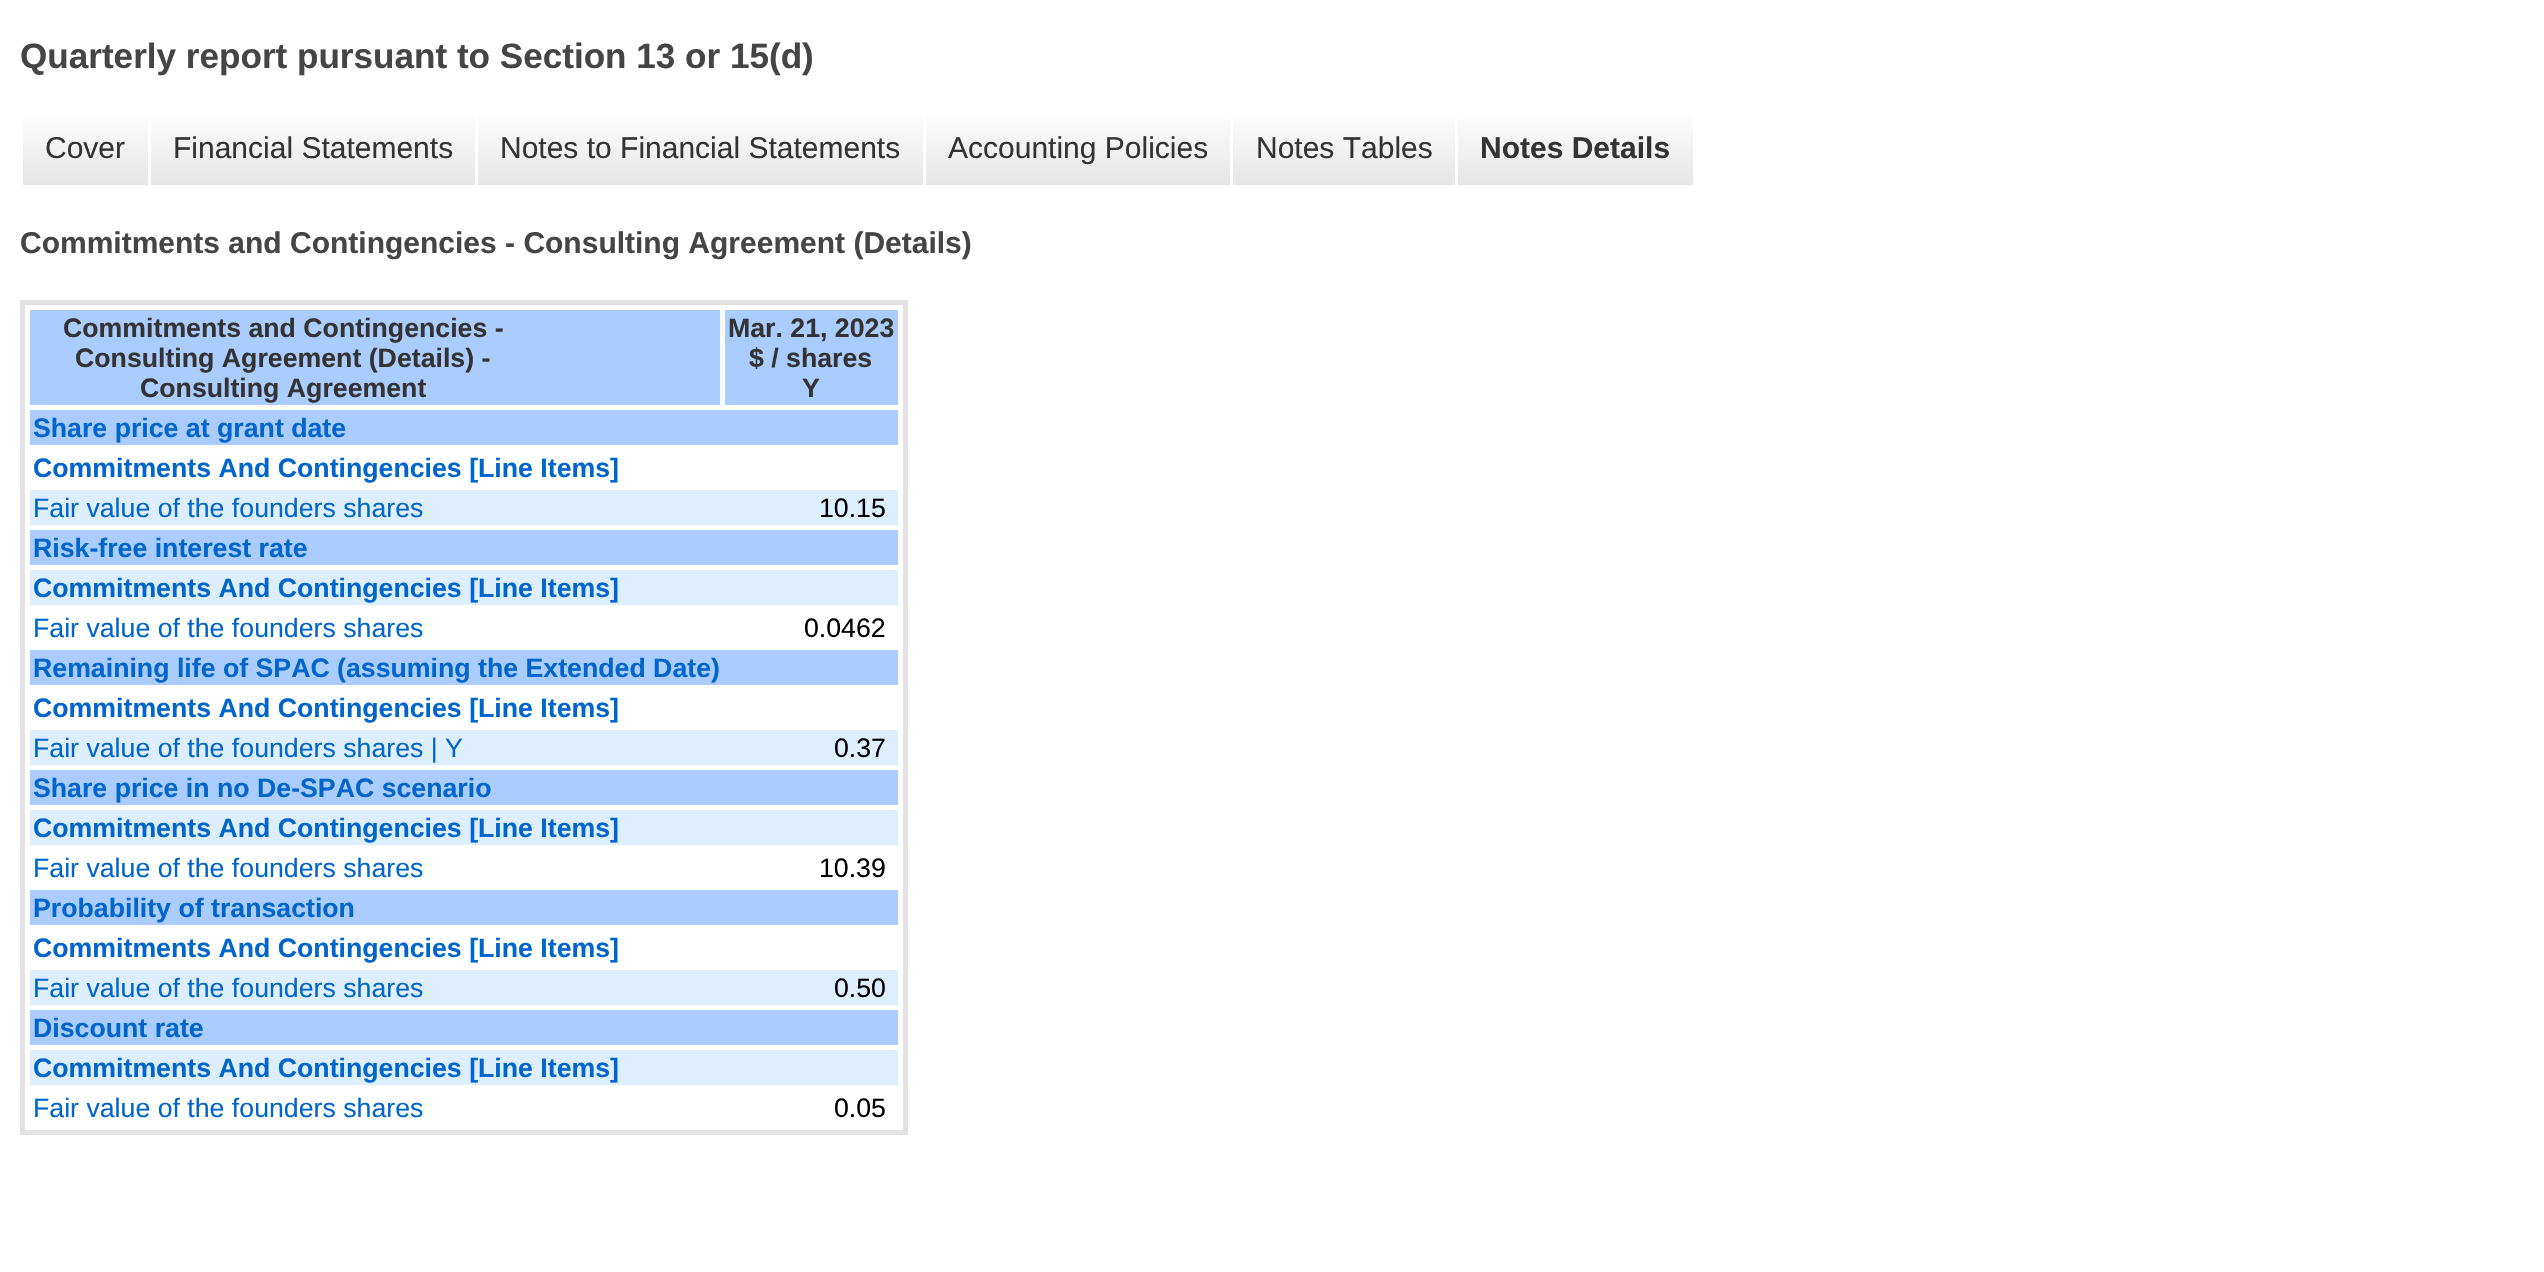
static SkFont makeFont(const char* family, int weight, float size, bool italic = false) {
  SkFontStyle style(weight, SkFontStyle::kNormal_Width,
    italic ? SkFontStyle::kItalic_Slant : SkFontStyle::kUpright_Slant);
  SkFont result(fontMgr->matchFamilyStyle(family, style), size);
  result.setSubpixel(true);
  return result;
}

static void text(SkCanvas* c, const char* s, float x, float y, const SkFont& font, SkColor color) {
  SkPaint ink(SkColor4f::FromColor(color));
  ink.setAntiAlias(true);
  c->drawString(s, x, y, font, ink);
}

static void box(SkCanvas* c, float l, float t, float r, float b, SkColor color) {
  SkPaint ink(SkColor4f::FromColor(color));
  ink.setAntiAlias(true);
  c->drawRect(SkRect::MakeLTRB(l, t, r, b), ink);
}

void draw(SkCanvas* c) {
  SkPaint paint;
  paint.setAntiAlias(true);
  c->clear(0xffffffff);
  SkFont face1 = makeFont("Liberation Sans", 700, 35.1f);
  text(c, "Quarterly report pursuant to Section 13 or 15(d)", 20, 68, face1, 0xff454545);
  {
    const SkColor colors[] = {0xffffffff, 0xffe5e5e5};
    const float stops[] = {0, 1};
    const SkPoint ends[] = {{85, 110}, {85, 185}};
    paint.setShader(SkGradientShader::MakeLinear(ends, colors, stops, 2, SkTileMode::kClamp));
    paint.setAlpha(255);
  }
  c->drawRect(SkRect::MakeLTRB(23, 117, 148, 185), paint);
  SkFont face2 = makeFont("Liberation Sans", 400, 30);
  text(c, "Cover", 45, 158, face2, 0xff333333);
  {
    const SkColor colors[] = {0xffffffff, 0xffe5e5e5};
    const float stops[] = {0, 1};
    const SkPoint ends[] = {{313, 110}, {313, 185}};
    paint.setShader(SkGradientShader::MakeLinear(ends, colors, stops, 2, SkTileMode::kClamp));
    paint.setAlpha(255);
  }
  c->drawRect(SkRect::MakeLTRB(151, 117, 475, 185), paint);
  text(c, "Financial Statements", 173, 158, face2, 0xff333333);
  {
    const SkColor colors[] = {0xffffffff, 0xffe5e5e5};
    const float stops[] = {0, 1};
    const SkPoint ends[] = {{700, 110}, {700, 185}};
    paint.setShader(SkGradientShader::MakeLinear(ends, colors, stops, 2, SkTileMode::kClamp));
    paint.setAlpha(255);
  }
  c->drawRect(SkRect::MakeLTRB(478, 117, 923, 185), paint);
  text(c, "Notes to Financial Statements", 500, 158, face2, 0xff333333);
  {
    const SkColor colors[] = {0xffffffff, 0xffe5e5e5};
    const float stops[] = {0, 1};
    const SkPoint ends[] = {{1078, 110}, {1078, 185}};
    paint.setShader(SkGradientShader::MakeLinear(ends, colors, stops, 2, SkTileMode::kClamp));
    paint.setAlpha(255);
  }
  c->drawRect(SkRect::MakeLTRB(926, 117, 1230, 185), paint);
  text(c, "Accounting Policies", 948, 158, face2, 0xff333333);
  {
    const SkColor colors[] = {0xffffffff, 0xffe5e5e5};
    const float stops[] = {0, 1};
    const SkPoint ends[] = {{1344, 110}, {1344, 185}};
    paint.setShader(SkGradientShader::MakeLinear(ends, colors, stops, 2, SkTileMode::kClamp));
    paint.setAlpha(255);
  }
  c->drawRect(SkRect::MakeLTRB(1233, 117, 1455, 185), paint);
  text(c, "Notes Tables", 1256, 158, face2, 0xff333333);
  {
    const SkColor colors[] = {0xffffffff, 0xffe5e5e5};
    const float stops[] = {0, 1};
    const SkPoint ends[] = {{1575, 110}, {1575, 185}};
    paint.setShader(SkGradientShader::MakeLinear(ends, colors, stops, 2, SkTileMode::kClamp));
    paint.setAlpha(255);
  }
  c->drawRect(SkRect::MakeLTRB(1458, 117, 1693, 185), paint);
  SkFont face3 = makeFont("Liberation Sans", 700, 30);
  text(c, "Notes Details", 1480, 158, face3, 0xff333333);
  text(c, "Commitments and Contingencies - Consulting Agreement (Details)", 20, 253, face3, 0xff454545);
  paint.setStyle(SkPaint::kStroke_Style);
  paint.setStrokeWidth(5);
  paint.setShader(nullptr);
  paint.setColor(0xffe3e3e3);
  c->drawRect(SkRect::MakeLTRB(22.5f, 302.5f, 905.5f, 1132.5f), paint);
  box(c, 30, 310, 720, 405, 0xffaaccff);
  SkFont face4 = makeFont("Liberation Sans", 700, 26.7f);
  text(c, "Commitments and Contingencies -", 63, 337, face4, 0xff333333);
  text(c, "Consulting Agreement (Details) -", 75, 367, face4, 0xff333333);
  text(c, "Consulting Agreement", 140, 397, face4, 0xff333333);
  box(c, 725, 310, 898, 405, 0xffaaccff);
  text(c, "Mar. 21, 2023", 728, 337, face4, 0xff333333);
  text(c, "$ / shares", 749, 367, face4, 0xff333333);
  text(c, "Y", 802, 397, face4, 0xff333333);
  box(c, 30, 410, 898, 445, 0xffaaccff);
  text(c, "Share price at grant date", 33, 437, face4, 0xff0066cc);
  text(c, "Commitments And Contingencies [Line Items]", 33, 477, face4, 0xff0066cc);
  box(c, 30, 490, 898, 525, 0xffddeeff);
  SkFont face5 = makeFont("Liberation Sans", 400, 26.7f);
  text(c, "Fair value of the founders shares", 33, 517, face5, 0xff0066cc);
  text(c, "10.15", 819, 517, face5, 0xff000000);
  box(c, 30, 530, 898, 565, 0xffaaccff);
  text(c, "Risk-free interest rate", 33, 557, face4, 0xff0066cc);
  box(c, 30, 570, 898, 605, 0xffddeeff);
  text(c, "Commitments And Contingencies [Line Items]", 33, 597, face4, 0xff0066cc);
  text(c, "Fair value of the founders shares", 33, 637, face5, 0xff0066cc);
  text(c, "0.0462", 804, 637, face5, 0xff000000);
  box(c, 30, 650, 898, 685, 0xffaaccff);
  text(c, "Remaining life of SPAC (assuming the Extended Date)", 33, 677, face4, 0xff0066cc);
  text(c, "Commitments And Contingencies [Line Items]", 33, 717, face4, 0xff0066cc);
  box(c, 30, 730, 898, 765, 0xffddeeff);
  text(c, "Fair value of the founders shares | Y", 33, 757, face5, 0xff0066cc);
  text(c, "0.37", 834, 757, face5, 0xff000000);
  box(c, 30, 770, 898, 805, 0xffaaccff);
  text(c, "Share price in no De-SPAC scenario", 33, 797, face4, 0xff0066cc);
  box(c, 30, 810, 898, 845, 0xffddeeff);
  text(c, "Commitments And Contingencies [Line Items]", 33, 837, face4, 0xff0066cc);
  text(c, "Fair value of the founders shares", 33, 877, face5, 0xff0066cc);
  text(c, "10.39", 819, 877, face5, 0xff000000);
  box(c, 30, 890, 898, 925, 0xffaaccff);
  text(c, "Probability of transaction", 33, 917, face4, 0xff0066cc);
  text(c, "Commitments And Contingencies [Line Items]", 33, 957, face4, 0xff0066cc);
  box(c, 30, 970, 898, 1005, 0xffddeeff);
  text(c, "Fair value of the founders shares", 33, 997, face5, 0xff0066cc);
  text(c, "0.50", 834, 997, face5, 0xff000000);
  box(c, 30, 1010, 898, 1045, 0xffaaccff);
  text(c, "Discount rate", 33, 1037, face4, 0xff0066cc);
  box(c, 30, 1050, 898, 1085, 0xffddeeff);
  text(c, "Commitments And Contingencies [Line Items]", 33, 1077, face4, 0xff0066cc);
  text(c, "Fair value of the founders shares", 33, 1117, face5, 0xff0066cc);
  text(c, "0.05", 834, 1117, face5, 0xff000000);
}
